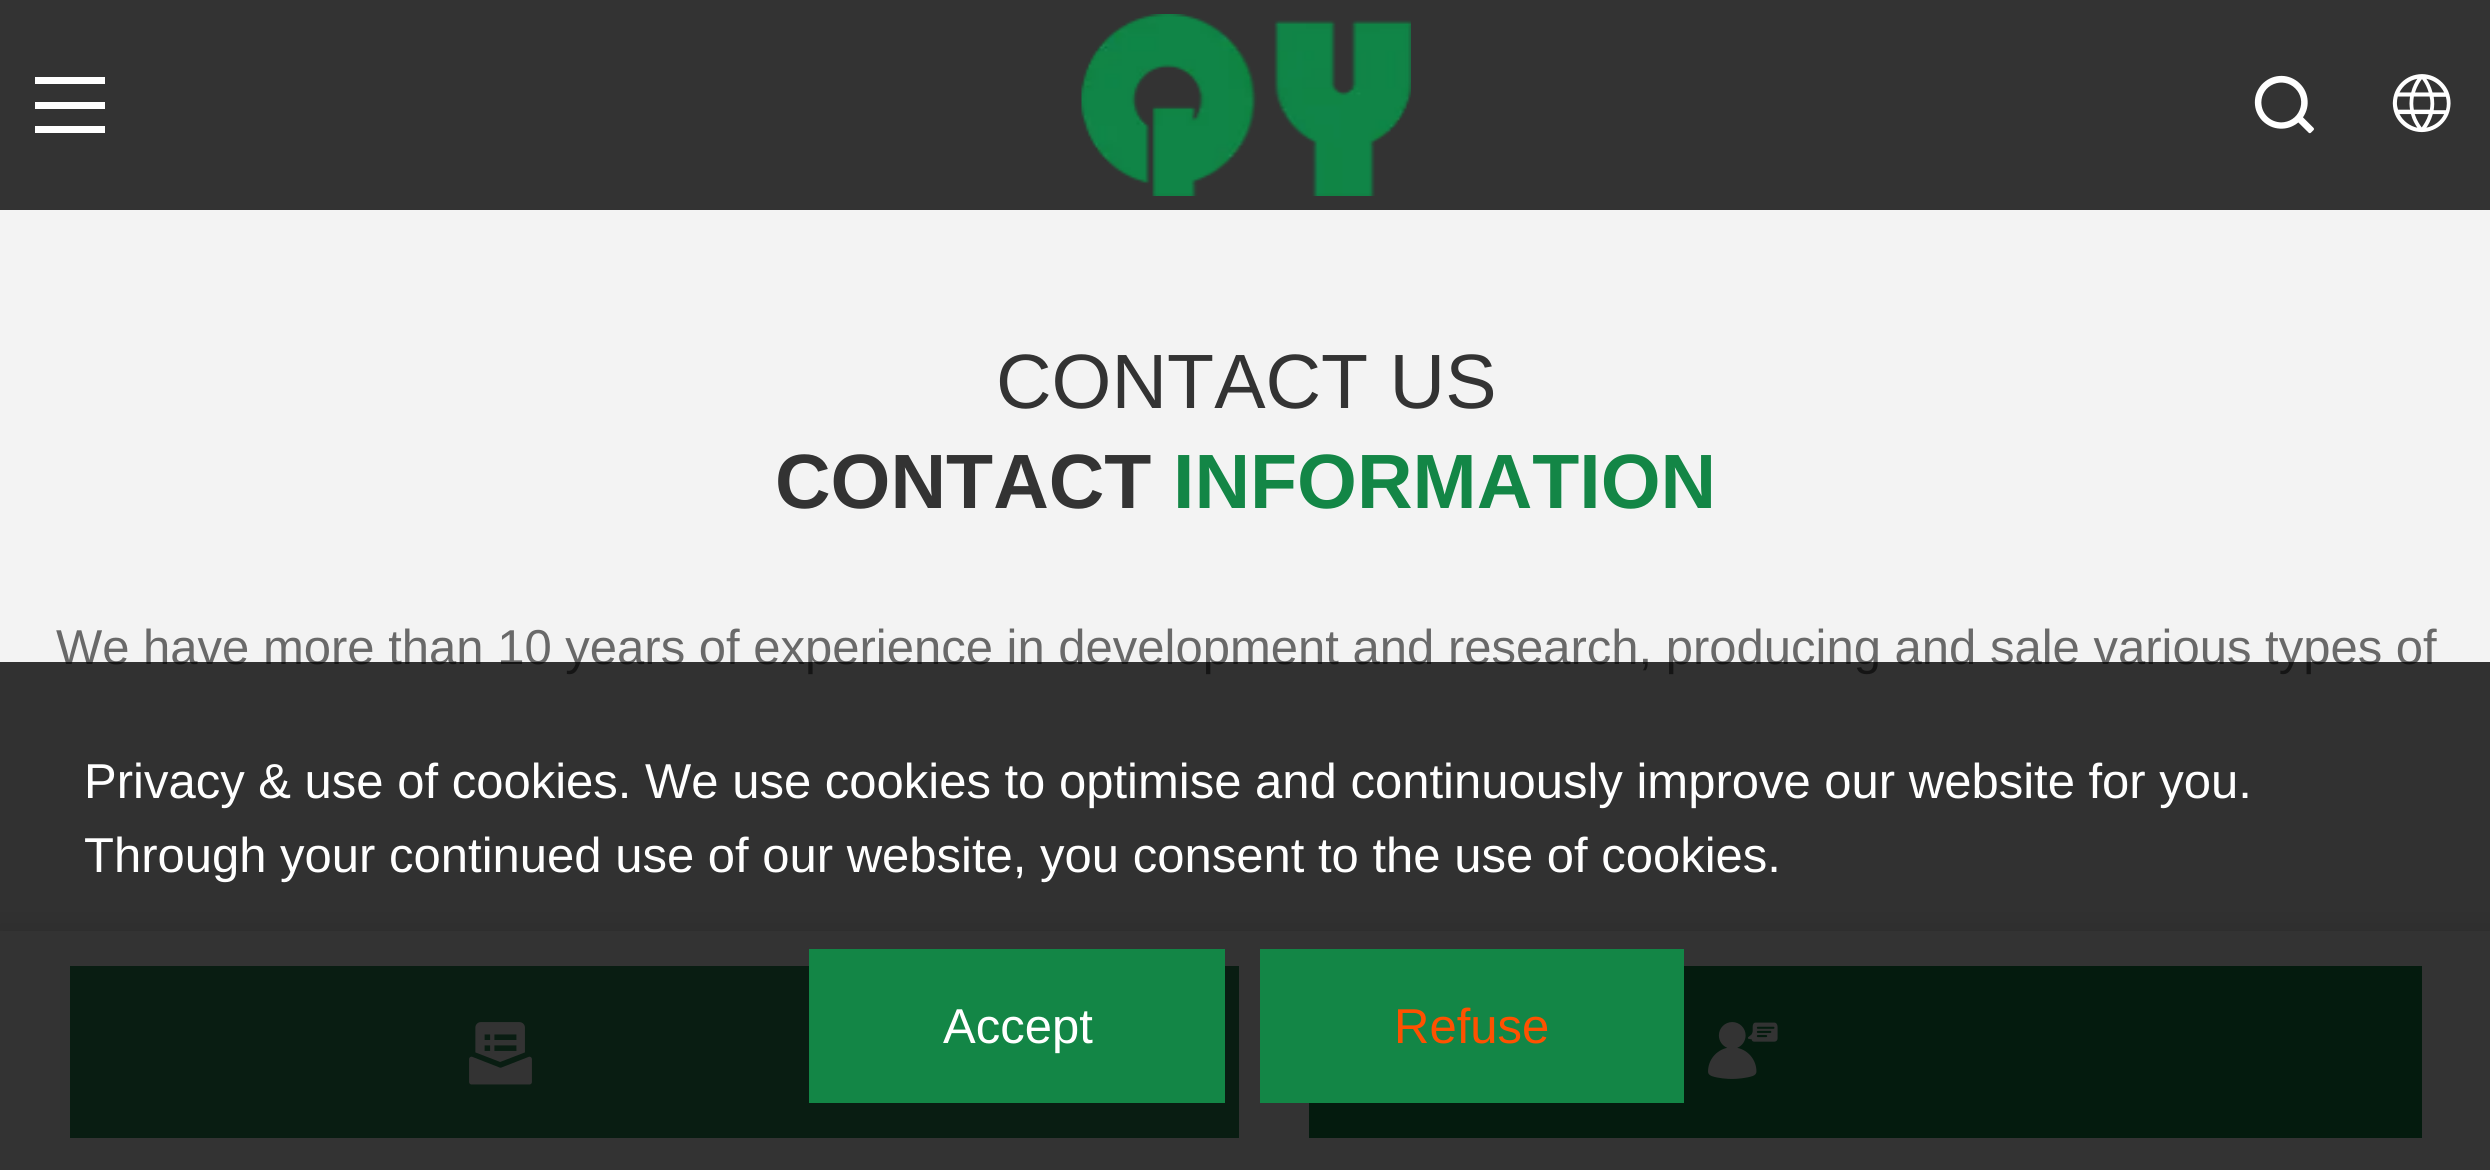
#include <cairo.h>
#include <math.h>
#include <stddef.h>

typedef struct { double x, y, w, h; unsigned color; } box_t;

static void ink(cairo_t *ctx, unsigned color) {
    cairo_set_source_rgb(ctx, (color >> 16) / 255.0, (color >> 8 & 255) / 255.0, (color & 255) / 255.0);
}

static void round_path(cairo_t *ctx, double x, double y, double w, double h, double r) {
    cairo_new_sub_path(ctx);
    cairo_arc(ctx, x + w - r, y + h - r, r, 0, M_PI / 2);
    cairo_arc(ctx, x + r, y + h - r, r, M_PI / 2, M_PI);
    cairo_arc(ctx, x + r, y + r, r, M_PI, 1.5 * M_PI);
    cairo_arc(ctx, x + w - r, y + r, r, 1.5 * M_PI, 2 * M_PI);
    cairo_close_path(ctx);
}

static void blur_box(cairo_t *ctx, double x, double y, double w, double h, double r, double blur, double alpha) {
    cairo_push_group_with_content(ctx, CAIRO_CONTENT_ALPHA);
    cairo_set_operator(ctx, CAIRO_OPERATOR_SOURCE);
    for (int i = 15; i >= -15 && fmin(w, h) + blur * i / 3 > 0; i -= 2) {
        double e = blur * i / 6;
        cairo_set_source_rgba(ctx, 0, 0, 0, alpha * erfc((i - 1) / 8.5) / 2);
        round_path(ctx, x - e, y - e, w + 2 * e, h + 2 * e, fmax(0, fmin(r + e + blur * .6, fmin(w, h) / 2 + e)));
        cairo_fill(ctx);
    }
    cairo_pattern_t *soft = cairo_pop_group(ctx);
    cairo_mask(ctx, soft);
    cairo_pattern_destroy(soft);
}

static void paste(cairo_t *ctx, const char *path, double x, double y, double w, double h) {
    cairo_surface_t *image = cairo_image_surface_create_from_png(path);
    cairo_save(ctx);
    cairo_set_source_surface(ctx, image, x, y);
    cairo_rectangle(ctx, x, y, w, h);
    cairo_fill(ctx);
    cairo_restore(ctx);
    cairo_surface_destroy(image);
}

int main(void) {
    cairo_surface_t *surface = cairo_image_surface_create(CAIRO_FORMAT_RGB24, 2490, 1170);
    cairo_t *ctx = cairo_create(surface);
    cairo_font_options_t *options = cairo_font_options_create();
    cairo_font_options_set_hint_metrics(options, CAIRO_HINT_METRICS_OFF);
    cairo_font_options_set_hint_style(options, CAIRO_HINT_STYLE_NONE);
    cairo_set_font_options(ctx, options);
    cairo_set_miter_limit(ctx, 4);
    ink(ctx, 0xF3F3F3);
    cairo_paint(ctx);
    {
        static const box_t items[] = {
            {0, 0, 2490, 210, 0x333333},
            {35, 77, 70, 7, 0xFFFFFF},
            {35, 102, 70, 7, 0xFFFFFF},
            {35, 126, 70, 7, 0xFFFFFF},
        };
        for (size_t i = 0; i < sizeof items / sizeof *items; i++) {
            ink(ctx, items[i].color);
            cairo_rectangle(ctx, items[i].x, items[i].y, items[i].w, items[i].h);
            cairo_fill(ctx);
        }
    }
    paste(ctx, "media/1.png", 1081, 14, 330, 182);
    paste(ctx, "media/2.png", 2254, 75, 60, 59);
    paste(ctx, "media/3.png", 2392, 74, 59, 59);
    cairo_select_font_face(ctx, "Liberation Sans", CAIRO_FONT_SLANT_NORMAL, CAIRO_FONT_WEIGHT_NORMAL);
    cairo_set_font_size(ctx, 77);
    ink(ctx, 0x333333);
    cairo_move_to(ctx, 996, 408);
    cairo_show_text(ctx, "CONTACT US");
    cairo_select_font_face(ctx, "Liberation Sans", CAIRO_FONT_SLANT_NORMAL, CAIRO_FONT_WEIGHT_BOLD);
    cairo_move_to(ctx, 775, 508);
    cairo_show_text(ctx, "CONTACT");
    ink(ctx, 0x138646);
    cairo_move_to(ctx, 1173, 508);
    cairo_show_text(ctx, "INFORMATION");
    cairo_select_font_face(ctx, "Liberation Sans", CAIRO_FONT_SLANT_NORMAL, CAIRO_FONT_WEIGHT_NORMAL);
    cairo_set_font_size(ctx, 49);
    ink(ctx, 0x696969);
    cairo_move_to(ctx, 56, 664);
    cairo_show_text(ctx, "We have more than 10 years of experience in development and research, producing and sale various types of");
    ink(ctx, 0x000000);
    blur_box(ctx, 0, 931, 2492, 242, 0, 10.5, 0.1);
    ink(ctx, 0xFFFFFF);
    cairo_rectangle(ctx, 0, 931, 2490, 239);
    cairo_fill(ctx);
    ink(ctx, 0x2B9259);
    cairo_rectangle(ctx, 70, 966, 1169, 172);
    cairo_fill(ctx);
    paste(ctx, "media/4.png", 469, 1022, 63, 63);
    ink(ctx, 0x138646);
    cairo_rectangle(ctx, 1309, 966, 1113, 172);
    cairo_fill(ctx);
    paste(ctx, "media/5.png", 1708, 1022, 70, 57);
    cairo_set_source_rgba(ctx, 0, 0, 0, 0.8);
    cairo_rectangle(ctx, 0, 662, 2490, 508);
    cairo_fill(ctx);
    ink(ctx, 0xFFFFFF);
    cairo_move_to(ctx, 84, 798);
    cairo_show_text(ctx, "Privacy & use of cookies. We use cookies to optimise and continuously improve our website for you.");
    cairo_move_to(ctx, 84, 872);
    cairo_show_text(ctx, "Through your continued use of our website, you consent to the use of cookies.");
    ink(ctx, 0x138646);
    cairo_rectangle(ctx, 809, 949, 416, 154);
    cairo_fill(ctx);
    ink(ctx, 0xFFFFFF);
    cairo_move_to(ctx, 943, 1043);
    cairo_show_text(ctx, "Accept");
    ink(ctx, 0x138646);
    cairo_rectangle(ctx, 1260, 949, 424, 154);
    cairo_fill(ctx);
    ink(ctx, 0xFF5100);
    cairo_move_to(ctx, 1394, 1043);
    cairo_show_text(ctx, "Refuse");
    cairo_surface_write_to_png(surface, "image.png");
    cairo_font_options_destroy(options);
    cairo_destroy(ctx);
    cairo_surface_destroy(surface);
    return 0;
}
